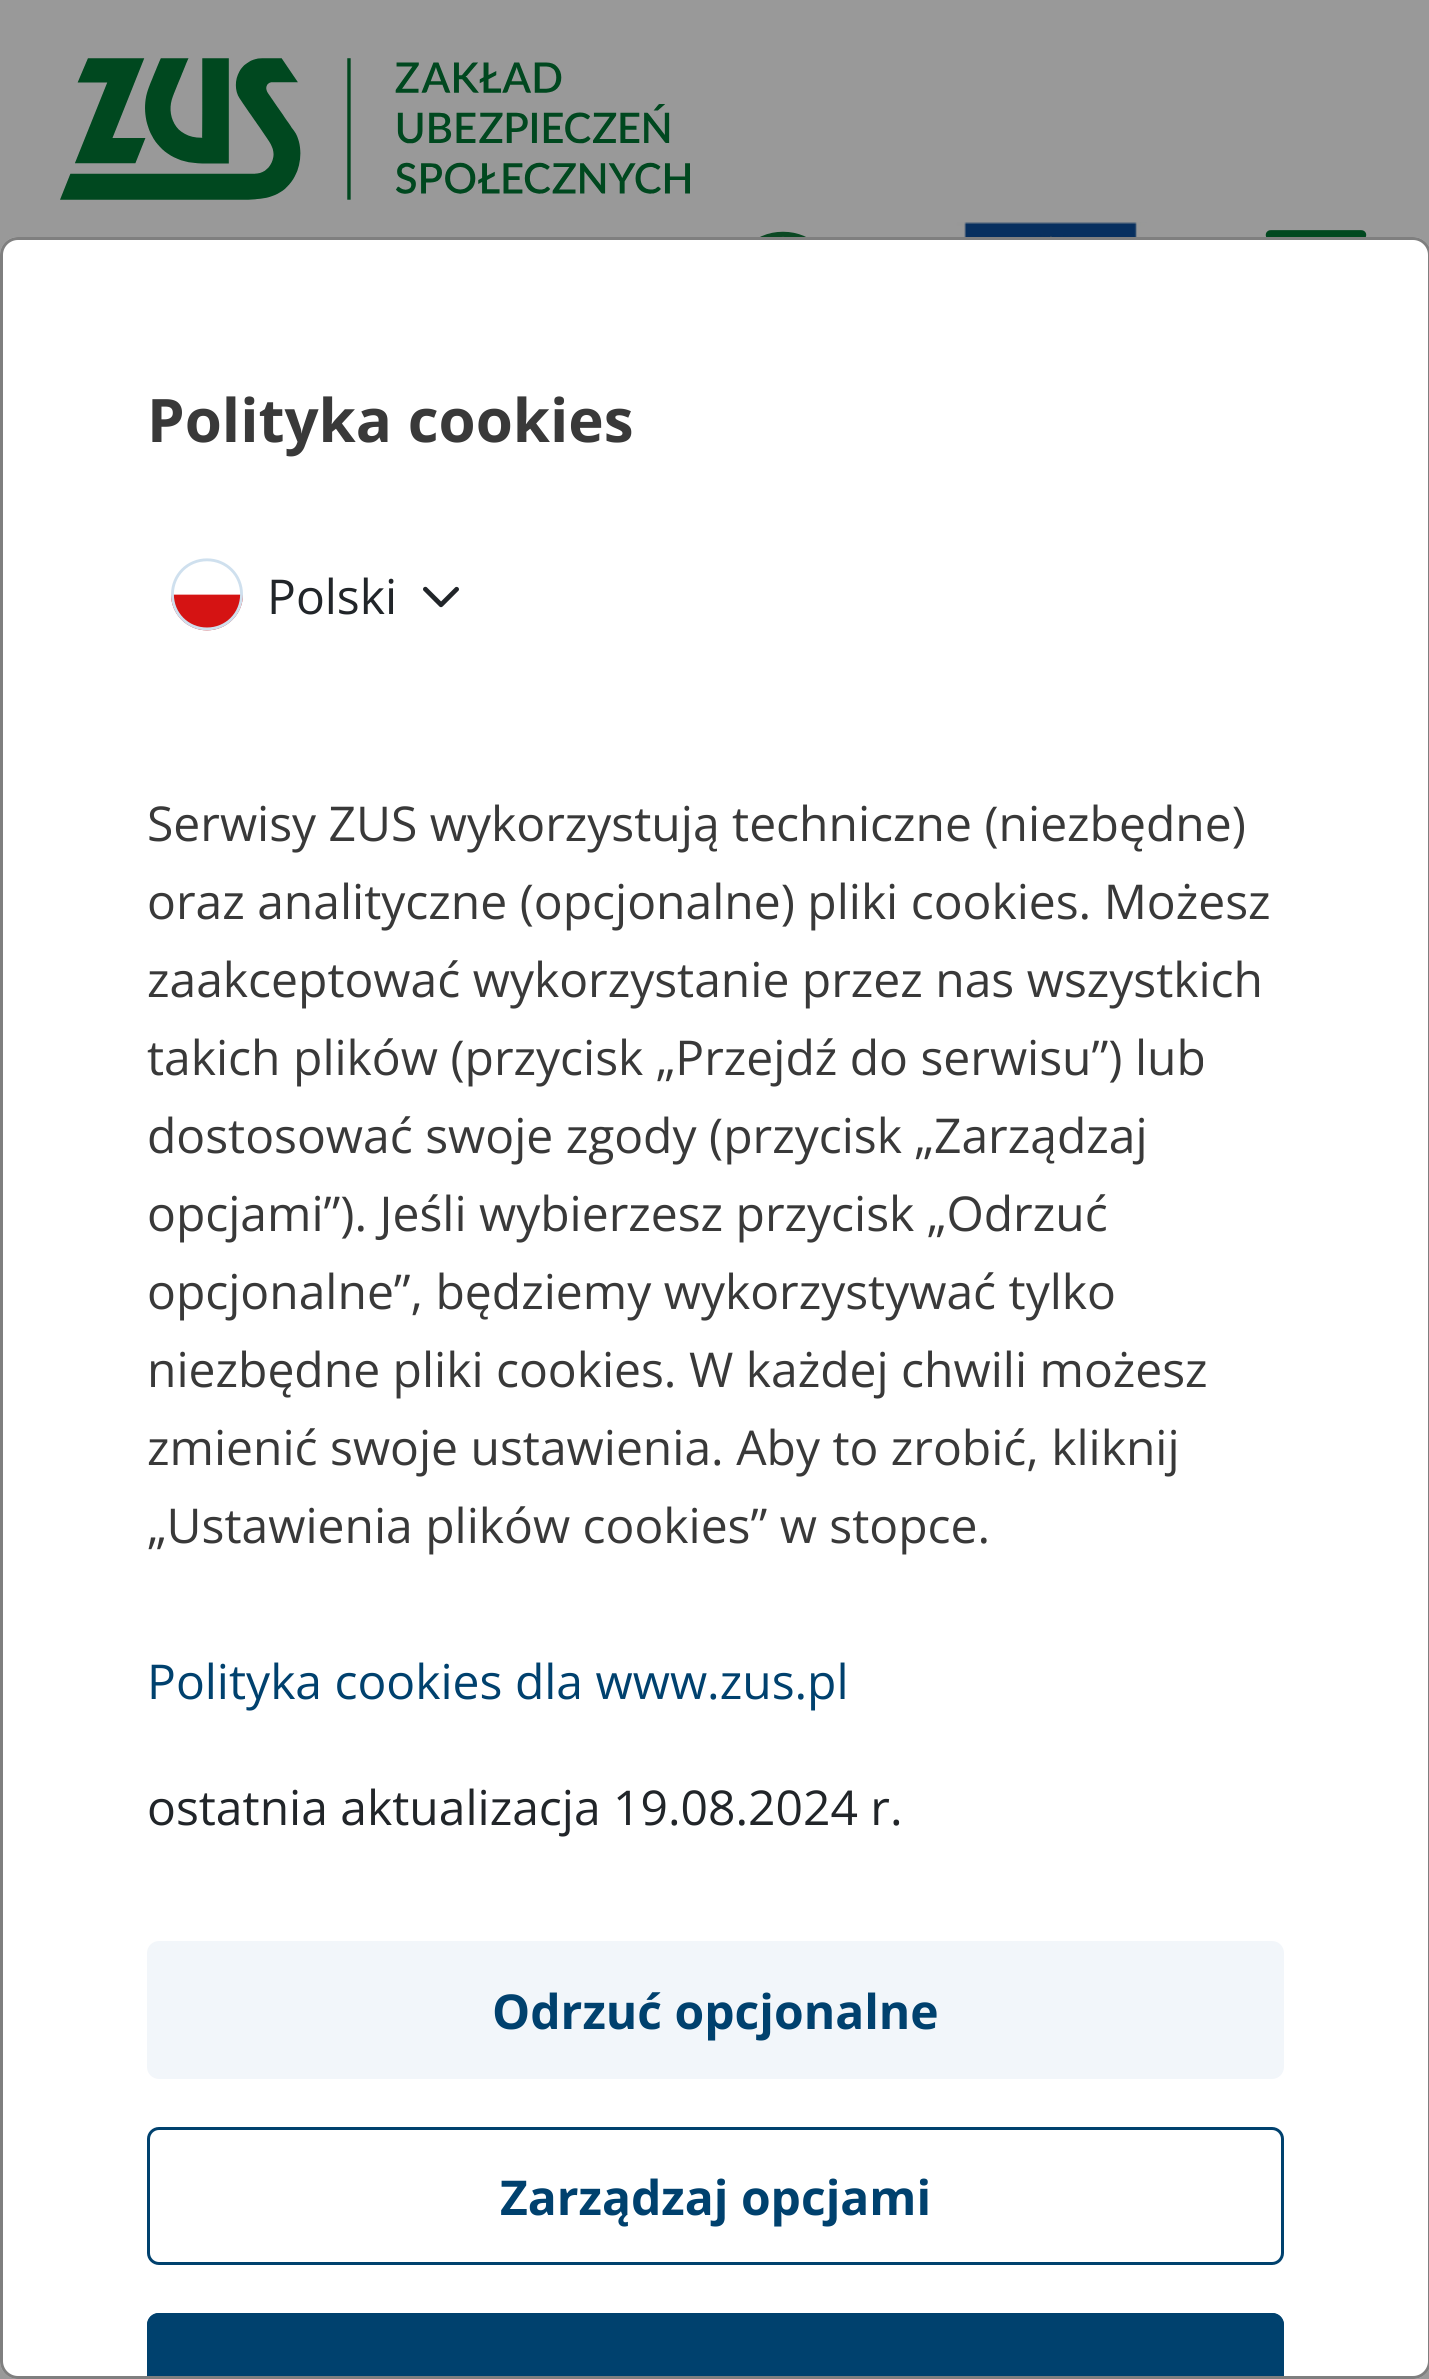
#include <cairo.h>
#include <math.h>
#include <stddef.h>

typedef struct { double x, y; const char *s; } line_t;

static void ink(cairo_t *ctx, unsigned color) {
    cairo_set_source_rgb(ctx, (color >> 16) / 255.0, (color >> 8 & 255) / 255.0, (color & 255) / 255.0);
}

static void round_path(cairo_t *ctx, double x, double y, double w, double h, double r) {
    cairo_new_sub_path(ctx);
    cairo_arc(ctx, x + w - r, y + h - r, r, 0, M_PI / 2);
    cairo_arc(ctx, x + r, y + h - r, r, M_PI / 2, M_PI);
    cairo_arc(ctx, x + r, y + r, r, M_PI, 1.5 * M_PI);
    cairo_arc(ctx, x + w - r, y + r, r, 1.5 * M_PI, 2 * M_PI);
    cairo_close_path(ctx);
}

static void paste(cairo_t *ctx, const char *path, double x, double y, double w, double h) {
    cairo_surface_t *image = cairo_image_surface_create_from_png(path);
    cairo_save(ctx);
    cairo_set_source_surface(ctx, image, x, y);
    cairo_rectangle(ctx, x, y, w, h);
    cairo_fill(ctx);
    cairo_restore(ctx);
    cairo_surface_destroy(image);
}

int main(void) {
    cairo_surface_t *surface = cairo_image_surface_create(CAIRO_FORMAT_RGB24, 1429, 2379);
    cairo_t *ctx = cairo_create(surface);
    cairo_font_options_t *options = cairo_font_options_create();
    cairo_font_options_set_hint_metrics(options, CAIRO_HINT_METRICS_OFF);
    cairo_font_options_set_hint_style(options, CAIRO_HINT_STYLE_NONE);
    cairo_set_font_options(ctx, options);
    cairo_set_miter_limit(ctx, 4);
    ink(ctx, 0x999999);
    cairo_paint(ctx);
    paste(ctx, "media/1.png", 60, 58, 630, 142);
    paste(ctx, "media/2.png", 760, 231, 46, 6);
    paste(ctx, "media/3.png", 902, 222, 297, 15);
    paste(ctx, "media/4.png", 1265, 230, 102, 7);
    ink(ctx, 0xFFFFFF);
    round_path(ctx, 0, 237, 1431, 2142, 18);
    cairo_fill(ctx);
    round_path(ctx, 1.5, 238.5, 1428, 2139, 16.5);
    cairo_set_source_rgba(ctx, 0, 0, 0, 0.5);
    cairo_set_line_width(ctx, 3);
    cairo_stroke(ctx);
    cairo_select_font_face(ctx, "Open Sans", CAIRO_FONT_SLANT_NORMAL, CAIRO_FONT_WEIGHT_BOLD);
    cairo_set_font_size(ctx, 60);
    ink(ctx, 0x393939);
    cairo_move_to(ctx, 147, 442);
    cairo_show_text(ctx, "Polityka cookies");
    paste(ctx, "media/5.png", 171, 558, 72, 73);
    cairo_select_font_face(ctx, "Open Sans", CAIRO_FONT_SLANT_NORMAL, CAIRO_FONT_WEIGHT_NORMAL);
    cairo_set_font_size(ctx, 48);
    ink(ctx, 0x212529);
    cairo_move_to(ctx, 267, 614);
    cairo_show_text(ctx, "Polski");
    paste(ctx, "media/6.png", 423, 586, 36, 22);
    ink(ctx, 0x393939);
    {
        static const line_t items[] = {
            {147, 841, "Serwisy ZUS wykorzystują techniczne (niezbędne)"},
            {147, 919, "oraz analityczne (opcjonalne) pliki cookies. Możesz"},
            {147, 997, "zaakceptować wykorzystanie przez nas wszystkich"},
            {147, 1075, "takich plików (przycisk „Przejdź do serwisu”) lub"},
            {147, 1153, "dostosować swoje zgody (przycisk „Zarządzaj"},
            {147, 1231, "opcjami”). Jeśli wybierzesz przycisk „Odrzuć"},
            {147, 1309, "opcjonalne”, będziemy wykorzystywać tylko"},
            {147, 1387, "niezbędne pliki cookies. W każdej chwili możesz"},
            {147, 1465, "zmienić swoje ustawienia. Aby to zrobić, kliknij"},
            {147, 1543, "„Ustawienia plików cookies” w stopce."},
        };
        for (size_t i = 0; i < sizeof items / sizeof *items; i++) {
            cairo_move_to(ctx, items[i].x, items[i].y);
            cairo_show_text(ctx, items[i].s);
        }
    }
    ink(ctx, 0x00416E);
    cairo_move_to(ctx, 147, 1699);
    cairo_show_text(ctx, "Polityka cookies dla www.zus.pl");
    ink(ctx, 0x212529);
    cairo_move_to(ctx, 147, 1825);
    cairo_show_text(ctx, "ostatnia aktualizacja 19.08.2024 r.");
    ink(ctx, 0xF2F6FA);
    round_path(ctx, 147, 1941, 1137, 138, 12);
    cairo_fill(ctx);
    cairo_select_font_face(ctx, "Open Sans", CAIRO_FONT_SLANT_NORMAL, CAIRO_FONT_WEIGHT_BOLD);
    ink(ctx, 0x00416E);
    cairo_move_to(ctx, 492, 2029);
    cairo_show_text(ctx, "Odrzuć opcjonalne");
    round_path(ctx, 148.5, 2128.5, 1134, 135, 10.5);
    cairo_stroke(ctx);
    cairo_move_to(ctx, 500, 2215);
    cairo_show_text(ctx, "Zarządzaj opcjami");
    cairo_new_path(ctx);
    cairo_move_to(ctx, 159, 2313);
    cairo_line_to(ctx, 1272, 2313);
    cairo_curve_to(ctx, 1278.5, 2313, 1284, 2318.5, 1284, 2325);
    cairo_line_to(ctx, 1284, 2376);
    cairo_line_to(ctx, 147, 2376);
    cairo_line_to(ctx, 147, 2325);
    cairo_curve_to(ctx, 147, 2318.5, 152.5, 2313, 159, 2313);
    cairo_close_path(ctx);
    cairo_fill(ctx);
    cairo_new_path(ctx);
    cairo_move_to(ctx, 159, 2313);
    cairo_curve_to(ctx, 152, 2313, 147, 2318, 147, 2325);
    cairo_line_to(ctx, 147, 2376);
    cairo_line_to(ctx, 150, 2376);
    cairo_line_to(ctx, 150, 2325);
    cairo_curve_to(ctx, 150, 2320, 154, 2316, 159, 2316);
    cairo_line_to(ctx, 1272, 2316);
    cairo_curve_to(ctx, 1277, 2316, 1281, 2320, 1281, 2325);
    cairo_line_to(ctx, 1281, 2376);
    cairo_line_to(ctx, 1284, 2376);
    cairo_line_to(ctx, 1284, 2325);
    cairo_curve_to(ctx, 1284, 2318, 1279, 2313, 1272, 2313);
    cairo_close_path(ctx);
    cairo_fill(ctx);
    cairo_surface_write_to_png(surface, "image.png");
    cairo_font_options_destroy(options);
    cairo_destroy(ctx);
    cairo_surface_destroy(surface);
    return 0;
}
